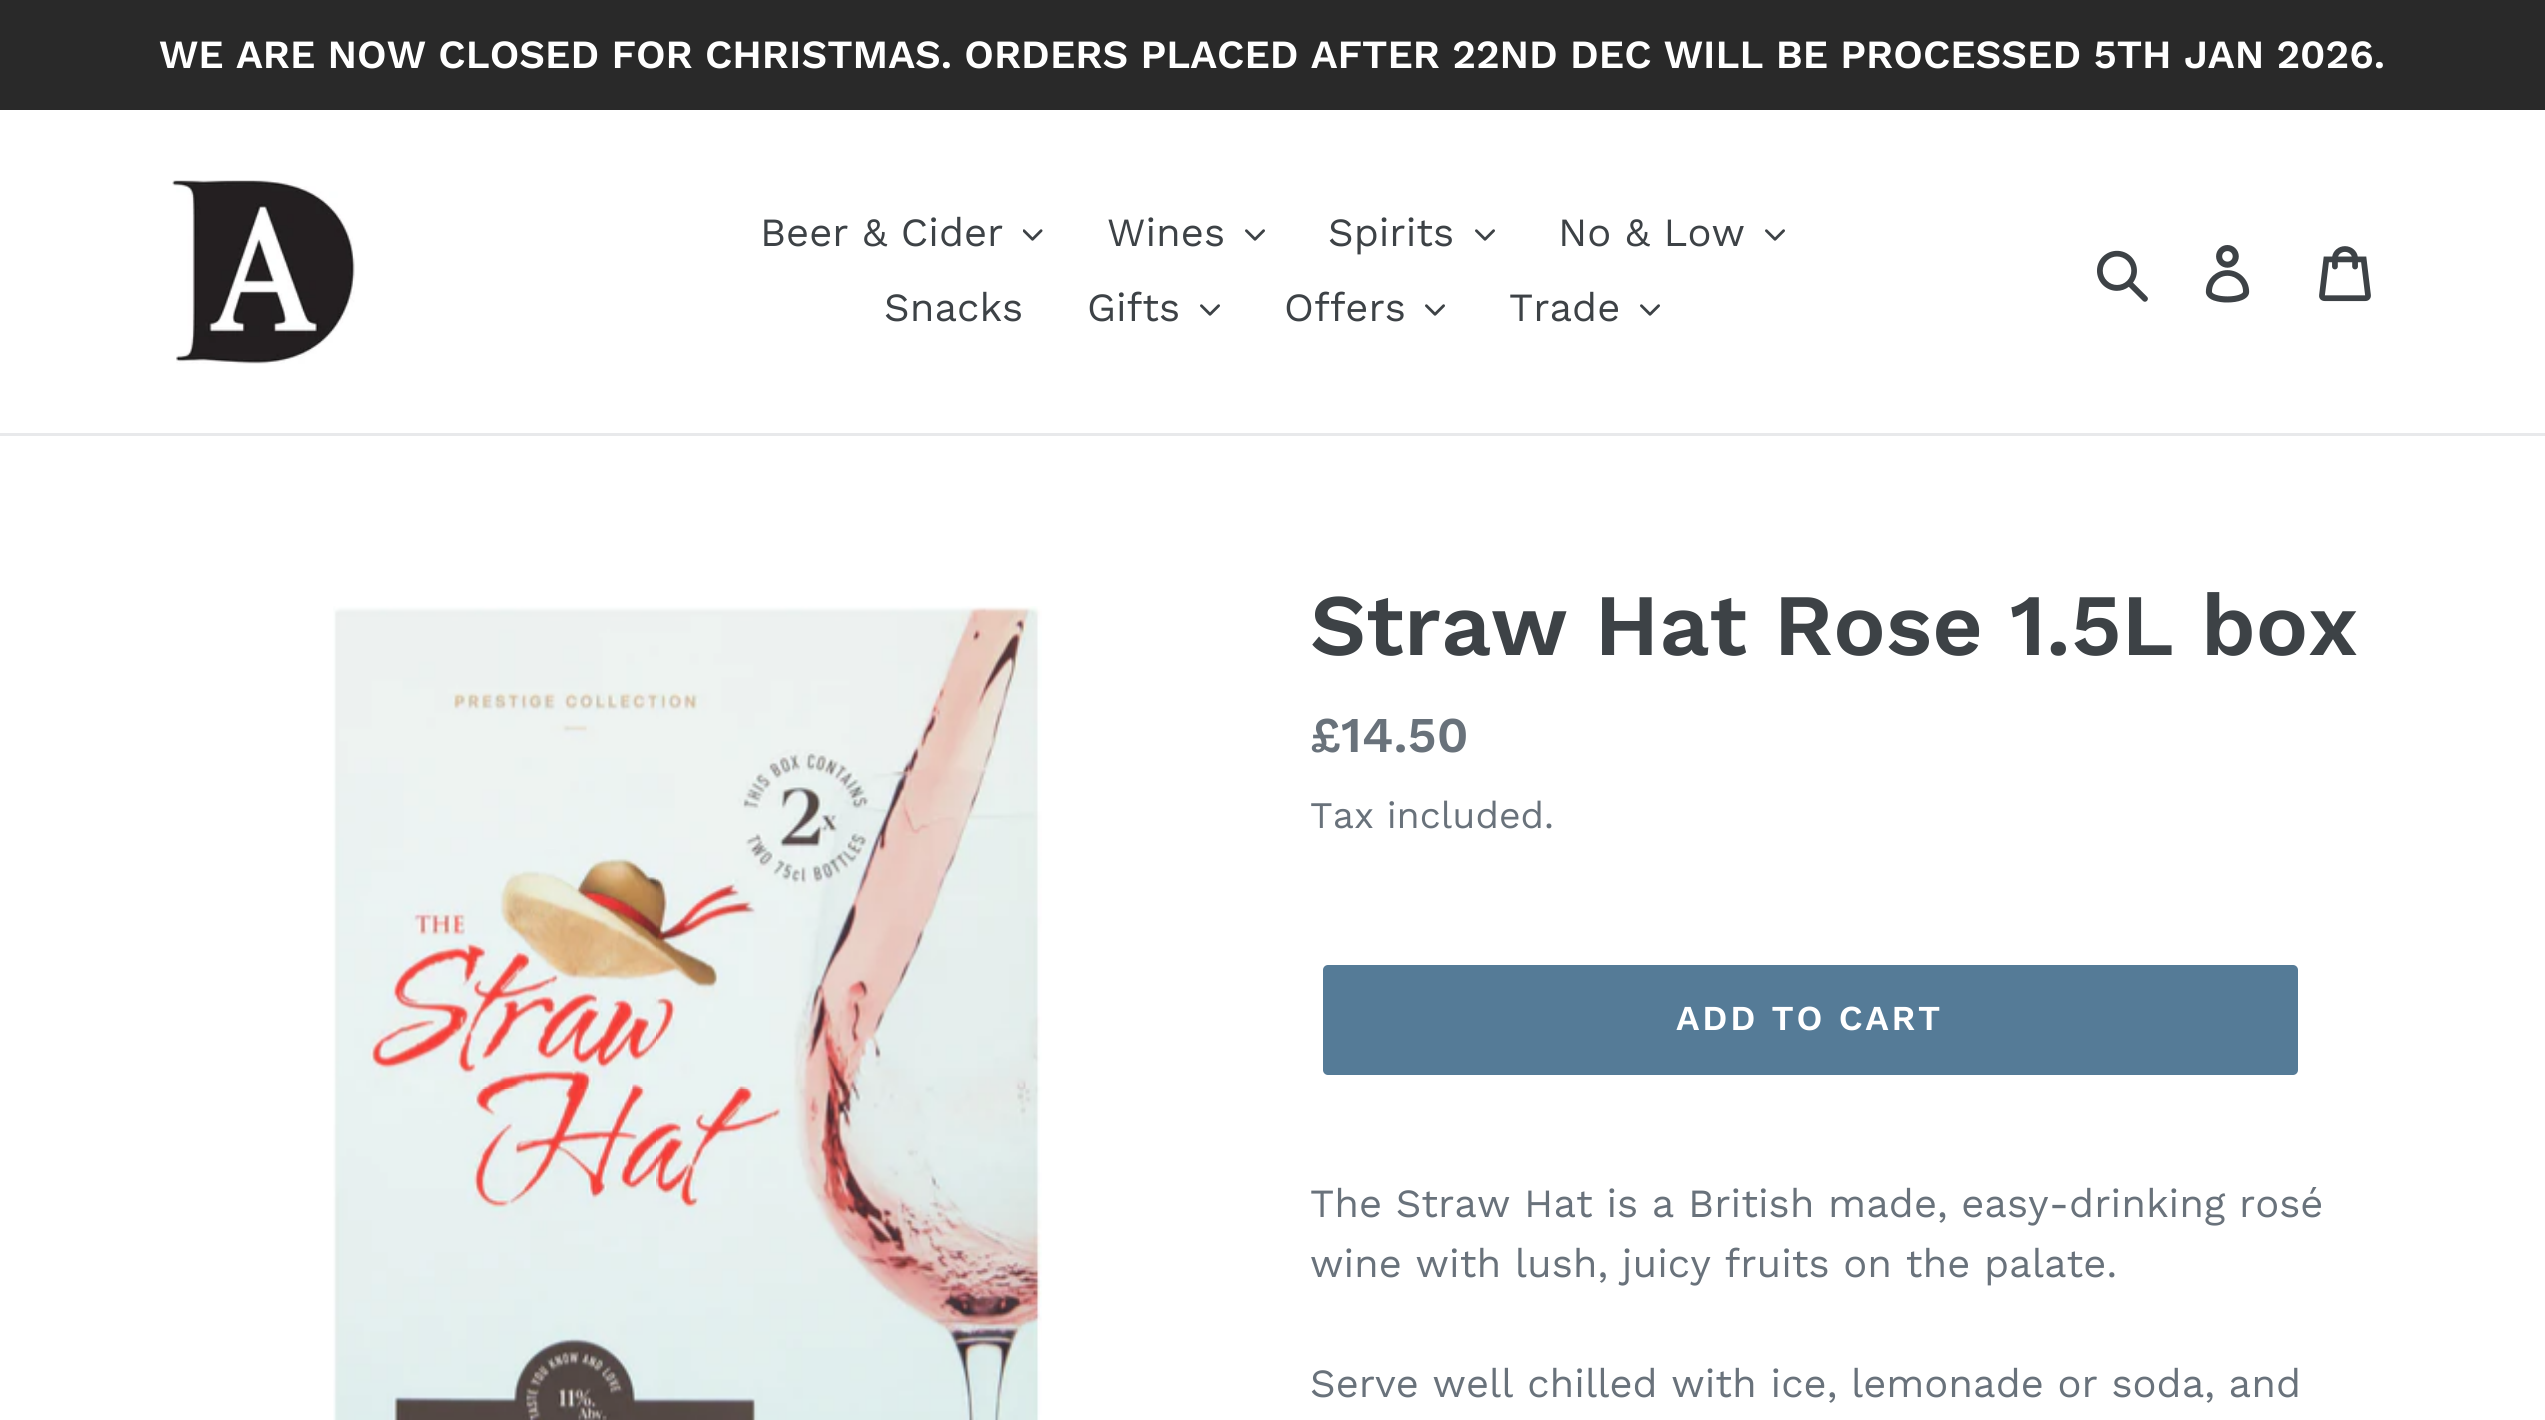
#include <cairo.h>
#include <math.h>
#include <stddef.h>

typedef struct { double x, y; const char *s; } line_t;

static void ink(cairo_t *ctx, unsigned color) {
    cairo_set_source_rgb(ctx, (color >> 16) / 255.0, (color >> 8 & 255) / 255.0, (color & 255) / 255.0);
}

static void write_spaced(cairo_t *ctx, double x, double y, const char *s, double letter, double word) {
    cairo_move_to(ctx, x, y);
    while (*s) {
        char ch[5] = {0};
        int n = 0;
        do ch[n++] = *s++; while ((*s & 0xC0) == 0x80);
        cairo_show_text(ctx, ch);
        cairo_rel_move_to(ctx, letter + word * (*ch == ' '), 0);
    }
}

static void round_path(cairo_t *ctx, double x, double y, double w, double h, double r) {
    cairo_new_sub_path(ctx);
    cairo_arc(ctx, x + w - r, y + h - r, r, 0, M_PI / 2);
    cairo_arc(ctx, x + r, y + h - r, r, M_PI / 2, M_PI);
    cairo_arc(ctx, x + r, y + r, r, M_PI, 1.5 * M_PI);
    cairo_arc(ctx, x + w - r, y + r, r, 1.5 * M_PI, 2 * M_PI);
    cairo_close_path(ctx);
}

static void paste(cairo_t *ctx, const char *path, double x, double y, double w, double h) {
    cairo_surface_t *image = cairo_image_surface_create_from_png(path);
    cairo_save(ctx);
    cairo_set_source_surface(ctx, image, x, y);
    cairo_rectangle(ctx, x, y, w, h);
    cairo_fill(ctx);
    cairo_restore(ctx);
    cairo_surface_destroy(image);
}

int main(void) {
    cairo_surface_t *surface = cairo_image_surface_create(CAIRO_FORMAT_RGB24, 2545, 1420);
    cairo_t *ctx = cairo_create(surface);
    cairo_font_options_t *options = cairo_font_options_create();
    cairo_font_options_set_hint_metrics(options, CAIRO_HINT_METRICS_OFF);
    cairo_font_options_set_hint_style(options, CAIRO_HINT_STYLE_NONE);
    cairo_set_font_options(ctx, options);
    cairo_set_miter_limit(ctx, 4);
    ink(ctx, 0xFFFFFF);
    cairo_paint(ctx);
    ink(ctx, 0x292929);
    cairo_rectangle(ctx, 0, 0, 2545, 110);
    cairo_fill(ctx);
    cairo_select_font_face(ctx, "Work Sans SemiBold", CAIRO_FONT_SLANT_NORMAL, CAIRO_FONT_WEIGHT_NORMAL);
    cairo_set_font_size(ctx, 40);
    ink(ctx, 0xFFFFFF);
    cairo_move_to(ctx, 159, 68);
    cairo_show_text(ctx, "WE ARE NOW CLOSED FOR CHRISTMAS. ORDERS PLACED AFTER 22ND DEC WILL BE PROCESSED 5TH JAN 2026.");
    ink(ctx, 0xE8E9EB);
    cairo_rectangle(ctx, 0, 433, 2545, 3);
    cairo_fill(ctx);
    paste(ctx, "media/1.png", 172, 180, 183, 184);
    cairo_select_font_face(ctx, "Work Sans", CAIRO_FONT_SLANT_NORMAL, CAIRO_FONT_WEIGHT_NORMAL);
    ink(ctx, 0x3D4246);
    cairo_move_to(ctx, 760, 246);
    cairo_show_text(ctx, "Beer & Cider");
    paste(ctx, "media/2.png", 1023, 229, 20, 12);
    cairo_move_to(ctx, 1107, 246);
    cairo_show_text(ctx, "Wines");
    paste(ctx, "media/3.png", 1245, 229, 20, 12);
    cairo_move_to(ctx, 1328, 246);
    cairo_show_text(ctx, "Spirits");
    paste(ctx, "media/3.png", 1475, 229, 20, 12);
    cairo_move_to(ctx, 1558, 246);
    cairo_show_text(ctx, "No & Low");
    paste(ctx, "media/3.png", 1765, 229, 20, 12);
    cairo_move_to(ctx, 884, 321);
    cairo_show_text(ctx, "Snacks");
    cairo_move_to(ctx, 1087, 321);
    cairo_show_text(ctx, "Gifts");
    paste(ctx, "media/3.png", 1200, 304, 20, 12);
    cairo_move_to(ctx, 1284, 321);
    cairo_show_text(ctx, "Offers");
    paste(ctx, "media/3.png", 1425, 304, 20, 12);
    cairo_move_to(ctx, 1509, 321);
    cairo_show_text(ctx, "Trade");
    paste(ctx, "media/3.png", 1640, 304, 20, 12);
    paste(ctx, "media/4.png", 2097, 250, 51, 52);
    paste(ctx, "media/5.png", 2205, 245, 45, 58);
    paste(ctx, "media/6.png", 2319, 246, 52, 56);
    paste(ctx, "media/7.png", 333, 606, 709, 814);
    cairo_select_font_face(ctx, "Work Sans SemiBold", CAIRO_FONT_SLANT_NORMAL, CAIRO_FONT_WEIGHT_NORMAL);
    cairo_set_font_size(ctx, 87.5);
    cairo_move_to(ctx, 1310, 655);
    cairo_show_text(ctx, "Straw Hat Rose 1.5L box");
    cairo_set_font_size(ctx, 50);
    ink(ctx, 0x69727B);
    cairo_move_to(ctx, 1310, 752);
    cairo_show_text(ctx, "£14.50");
    cairo_select_font_face(ctx, "Work Sans", CAIRO_FONT_SLANT_NORMAL, CAIRO_FONT_WEIGHT_NORMAL);
    cairo_set_font_size(ctx, 37.5);
    cairo_move_to(ctx, 1310, 828);
    cairo_show_text(ctx, "Tax included.");
    ink(ctx, 0x557B97);
    round_path(ctx, 1323, 965, 975, 110, 5);
    cairo_fill(ctx);
    cairo_select_font_face(ctx, "Work Sans SemiBold", CAIRO_FONT_SLANT_NORMAL, CAIRO_FONT_WEIGHT_NORMAL);
    cairo_set_font_size(ctx, 35);
    ink(ctx, 0xFFFFFF);
    write_spaced(ctx, 1676, 1030, "ADD TO CART", 2.75, 0);
    cairo_select_font_face(ctx, "Work Sans", CAIRO_FONT_SLANT_NORMAL, CAIRO_FONT_WEIGHT_NORMAL);
    cairo_set_font_size(ctx, 40);
    ink(ctx, 0x69727B);
    {
        static const line_t items[] = {
            {1310, 1217, "The Straw Hat is a British made, easy-drinking rosé"},
            {1310, 1277, "wine with lush, juicy fruits on the palate."},
            {1310, 1397, "Serve well chilled with ice, lemonade or soda, and"},
        };
        for (size_t i = 0; i < sizeof items / sizeof *items; i++) {
            cairo_move_to(ctx, items[i].x, items[i].y);
            cairo_show_text(ctx, items[i].s);
        }
    }
    cairo_surface_write_to_png(surface, "image.png");
    cairo_font_options_destroy(options);
    cairo_destroy(ctx);
    cairo_surface_destroy(surface);
    return 0;
}
